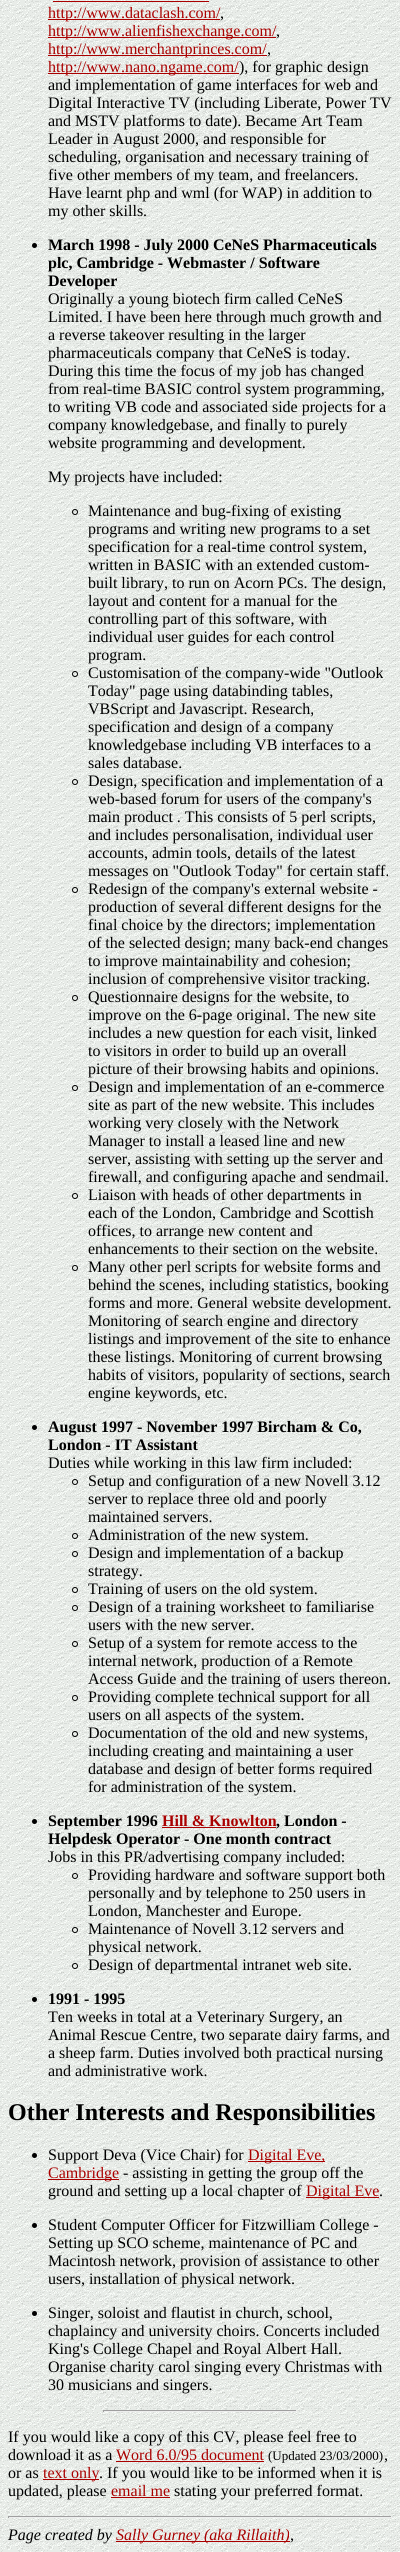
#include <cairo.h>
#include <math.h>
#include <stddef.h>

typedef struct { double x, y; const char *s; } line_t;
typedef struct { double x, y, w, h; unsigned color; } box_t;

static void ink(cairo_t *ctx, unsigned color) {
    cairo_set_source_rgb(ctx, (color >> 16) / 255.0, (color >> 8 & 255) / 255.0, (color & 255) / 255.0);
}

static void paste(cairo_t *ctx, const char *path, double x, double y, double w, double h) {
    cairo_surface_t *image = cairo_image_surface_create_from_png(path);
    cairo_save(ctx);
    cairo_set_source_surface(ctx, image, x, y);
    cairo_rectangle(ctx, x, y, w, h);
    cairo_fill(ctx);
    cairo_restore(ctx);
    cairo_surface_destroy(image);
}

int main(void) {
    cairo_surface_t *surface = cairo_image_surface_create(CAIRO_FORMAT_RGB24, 400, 2552);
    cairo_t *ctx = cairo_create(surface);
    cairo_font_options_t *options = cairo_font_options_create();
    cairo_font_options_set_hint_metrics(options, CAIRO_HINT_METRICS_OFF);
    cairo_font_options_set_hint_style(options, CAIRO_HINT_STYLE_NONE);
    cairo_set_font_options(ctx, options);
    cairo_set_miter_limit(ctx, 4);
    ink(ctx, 0xFFFFFF);
    cairo_paint(ctx);
    paste(ctx, "media/1.png", 0, 0, 400, 2552);
    ink(ctx, 0xAA0000);
    cairo_rectangle(ctx, 53, 1, 156, 1);
    cairo_fill(ctx);
    cairo_rectangle(ctx, 48, 19, 172, 1);
    cairo_fill(ctx);
    cairo_select_font_face(ctx, "Liberation Serif", CAIRO_FONT_SLANT_NORMAL, CAIRO_FONT_WEIGHT_NORMAL);
    cairo_set_font_size(ctx, 16);
    cairo_move_to(ctx, 48, 18);
    cairo_show_text(ctx, "http://www.dataclash.com/");
    ink(ctx, 0x000000);
    cairo_move_to(ctx, 220, 18);
    cairo_show_text(ctx, ",");
    ink(ctx, 0xAA0000);
    cairo_rectangle(ctx, 48, 37, 228, 1);
    cairo_fill(ctx);
    cairo_move_to(ctx, 48, 36);
    cairo_show_text(ctx, "http://www.alienfishexchange.com/");
    ink(ctx, 0x000000);
    cairo_move_to(ctx, 276, 36);
    cairo_show_text(ctx, ",");
    ink(ctx, 0xAA0000);
    cairo_rectangle(ctx, 48, 55, 219, 1);
    cairo_fill(ctx);
    cairo_move_to(ctx, 48, 54);
    cairo_show_text(ctx, "http://www.merchantprinces.com/");
    ink(ctx, 0x000000);
    cairo_move_to(ctx, 267, 54);
    cairo_show_text(ctx, ",");
    ink(ctx, 0xAA0000);
    cairo_rectangle(ctx, 48, 73, 191, 1);
    cairo_fill(ctx);
    cairo_move_to(ctx, 48, 72);
    cairo_show_text(ctx, "http://www.nano.ngame.com/");
    ink(ctx, 0x000000);
    {
        static const line_t items[] = {
            {239, 72, "), for graphic design"},
            {48, 90, "and implementation of game interfaces for web and"},
            {48, 108, "Digital Interactive TV (including Liberate, Power TV"},
            {48, 126, "and MSTV platforms to date). Became Art Team"},
            {48, 144, "Leader in August 2000, and responsible for"},
            {48, 162, "scheduling, organisation and necessary training of"},
            {48, 180, "five other members of my team, and freelancers."},
            {48, 198, "Have learnt php and wml (for WAP) in addition to"},
            {48, 216, "my other skills."},
        };
        for (size_t i = 0; i < sizeof items / sizeof *items; i++) {
            cairo_move_to(ctx, items[i].x, items[i].y);
            cairo_show_text(ctx, items[i].s);
        }
    }
    cairo_new_path(ctx);
    cairo_arc(ctx, 34.5, 245.5, 2.5, 0, 2 * M_PI);
    cairo_fill(ctx);
    cairo_select_font_face(ctx, "Liberation Serif", CAIRO_FONT_SLANT_NORMAL, CAIRO_FONT_WEIGHT_BOLD);
    {
        static const line_t items[] = {
            {48, 250, "March 1998 - July 2000 CeNeS Pharmaceuticals"},
            {48, 268, "plc, Cambridge - Webmaster / Software"},
            {48, 286, "Developer"},
        };
        for (size_t i = 0; i < sizeof items / sizeof *items; i++) {
            cairo_move_to(ctx, items[i].x, items[i].y);
            cairo_show_text(ctx, items[i].s);
        }
    }
    cairo_select_font_face(ctx, "Liberation Serif", CAIRO_FONT_SLANT_NORMAL, CAIRO_FONT_WEIGHT_NORMAL);
    {
        static const line_t items[] = {
            {48, 304, "Originally a young biotech firm called CeNeS"},
            {48, 322, "Limited. I have been here through much growth and"},
            {48, 340, "a reverse takeover resulting in the larger"},
            {48, 358, "pharmaceuticals company that CeNeS is today."},
            {48, 376, "During this time the focus of my job has changed"},
            {48, 394, "from real-time BASIC control system programming,"},
            {48, 412, "to writing VB code and associated side projects for a"},
            {48, 430, "company knowledgebase, and finally to purely"},
            {48, 448, "website programming and development."},
            {48, 482, "My projects have included:"},
        };
        for (size_t i = 0; i < sizeof items / sizeof *items; i++) {
            cairo_move_to(ctx, items[i].x, items[i].y);
            cairo_show_text(ctx, items[i].s);
        }
    }
    cairo_new_path(ctx);
    cairo_arc(ctx, 75, 512, 2.5, 0, 2 * M_PI);
    cairo_set_line_width(ctx, 1);
    cairo_stroke(ctx);
    {
        static const line_t items[] = {
            {88, 516, "Maintenance and bug-fixing of existing"},
            {88, 534, "programs and writing new programs to a set"},
            {88, 552, "specification for a real-time control system,"},
            {88, 570, "written in BASIC with an extended custom-"},
            {88, 588, "built library, to run on Acorn PCs. The design,"},
            {88, 606, "layout and content for a manual for the"},
            {88, 624, "controlling part of this software, with"},
            {88, 642, "individual user guides for each control"},
            {88, 660, "program."},
        };
        for (size_t i = 0; i < sizeof items / sizeof *items; i++) {
            cairo_move_to(ctx, items[i].x, items[i].y);
            cairo_show_text(ctx, items[i].s);
        }
    }
    cairo_new_path(ctx);
    cairo_arc(ctx, 75, 674, 2.5, 0, 2 * M_PI);
    cairo_stroke(ctx);
    {
        static const line_t items[] = {
            {88, 678, "Customisation of the company-wide \"Outlook"},
            {88, 696, "Today\" page using databinding tables,"},
            {88, 714, "VBScript and Javascript. Research,"},
            {88, 732, "specification and design of a company"},
            {88, 750, "knowledgebase including VB interfaces to a"},
            {88, 768, "sales database."},
        };
        for (size_t i = 0; i < sizeof items / sizeof *items; i++) {
            cairo_move_to(ctx, items[i].x, items[i].y);
            cairo_show_text(ctx, items[i].s);
        }
    }
    cairo_new_path(ctx);
    cairo_arc(ctx, 75, 782, 2.5, 0, 2 * M_PI);
    cairo_stroke(ctx);
    {
        static const line_t items[] = {
            {88, 786, "Design, specification and implementation of a"},
            {88, 804, "web-based forum for users of the company's"},
            {88, 822, "main product . This consists of 5 perl scripts,"},
            {88, 840, "and includes personalisation, individual user"},
            {88, 858, "accounts, admin tools, details of the latest"},
            {88, 876, "messages on \"Outlook Today\" for certain staff."},
        };
        for (size_t i = 0; i < sizeof items / sizeof *items; i++) {
            cairo_move_to(ctx, items[i].x, items[i].y);
            cairo_show_text(ctx, items[i].s);
        }
    }
    cairo_new_path(ctx);
    cairo_arc(ctx, 75, 890, 2.5, 0, 2 * M_PI);
    cairo_stroke(ctx);
    {
        static const line_t items[] = {
            {88, 894, "Redesign of the company's external website -"},
            {88, 912, "production of several different designs for the"},
            {88, 930, "final choice by the directors; implementation"},
            {88, 948, "of the selected design; many back-end changes"},
            {88, 966, "to improve maintainability and cohesion;"},
            {88, 984, "inclusion of comprehensive visitor tracking."},
        };
        for (size_t i = 0; i < sizeof items / sizeof *items; i++) {
            cairo_move_to(ctx, items[i].x, items[i].y);
            cairo_show_text(ctx, items[i].s);
        }
    }
    cairo_new_path(ctx);
    cairo_arc(ctx, 75, 998, 2.5, 0, 2 * M_PI);
    cairo_stroke(ctx);
    {
        static const line_t items[] = {
            {88, 1002, "Questionnaire designs for the website, to"},
            {88, 1020, "improve on the 6-page original. The new site"},
            {88, 1038, "includes a new question for each visit, linked"},
            {88, 1056, "to visitors in order to build up an overall"},
            {88, 1074, "picture of their browsing habits and opinions."},
        };
        for (size_t i = 0; i < sizeof items / sizeof *items; i++) {
            cairo_move_to(ctx, items[i].x, items[i].y);
            cairo_show_text(ctx, items[i].s);
        }
    }
    cairo_new_path(ctx);
    cairo_arc(ctx, 75, 1088, 2.5, 0, 2 * M_PI);
    cairo_stroke(ctx);
    {
        static const line_t items[] = {
            {88, 1092, "Design and implementation of an e-commerce"},
            {88, 1110, "site as part of the new website. This includes"},
            {88, 1128, "working very closely with the Network"},
            {88, 1146, "Manager to install a leased line and new"},
            {88, 1164, "server, assisting with setting up the server and"},
            {88, 1182, "firewall, and configuring apache and sendmail."},
        };
        for (size_t i = 0; i < sizeof items / sizeof *items; i++) {
            cairo_move_to(ctx, items[i].x, items[i].y);
            cairo_show_text(ctx, items[i].s);
        }
    }
    cairo_new_path(ctx);
    cairo_arc(ctx, 75, 1196, 2.5, 0, 2 * M_PI);
    cairo_stroke(ctx);
    {
        static const line_t items[] = {
            {88, 1200, "Liaison with heads of other departments in"},
            {88, 1218, "each of the London, Cambridge and Scottish"},
            {88, 1236, "offices, to arrange new content and"},
            {88, 1254, "enhancements to their section on the website."},
        };
        for (size_t i = 0; i < sizeof items / sizeof *items; i++) {
            cairo_move_to(ctx, items[i].x, items[i].y);
            cairo_show_text(ctx, items[i].s);
        }
    }
    cairo_new_path(ctx);
    cairo_arc(ctx, 75, 1268, 2.5, 0, 2 * M_PI);
    cairo_stroke(ctx);
    {
        static const line_t items[] = {
            {88, 1272, "Many other perl scripts for website forms and"},
            {88, 1290, "behind the scenes, including statistics, booking"},
            {88, 1308, "forms and more. General website development."},
            {88, 1326, "Monitoring of search engine and directory"},
            {88, 1344, "listings and improvement of the site to enhance"},
            {88, 1362, "these listings. Monitoring of current browsing"},
            {88, 1380, "habits of visitors, popularity of sections, search"},
            {88, 1398, "engine keywords, etc."},
        };
        for (size_t i = 0; i < sizeof items / sizeof *items; i++) {
            cairo_move_to(ctx, items[i].x, items[i].y);
            cairo_show_text(ctx, items[i].s);
        }
    }
    cairo_new_path(ctx);
    cairo_arc(ctx, 34.5, 1427.5, 2.5, 0, 2 * M_PI);
    cairo_fill(ctx);
    cairo_select_font_face(ctx, "Liberation Serif", CAIRO_FONT_SLANT_NORMAL, CAIRO_FONT_WEIGHT_BOLD);
    cairo_move_to(ctx, 48, 1432);
    cairo_show_text(ctx, "August 1997 - November 1997 Bircham & Co,");
    cairo_move_to(ctx, 48, 1450);
    cairo_show_text(ctx, "London - IT Assistant");
    cairo_select_font_face(ctx, "Liberation Serif", CAIRO_FONT_SLANT_NORMAL, CAIRO_FONT_WEIGHT_NORMAL);
    cairo_move_to(ctx, 48, 1468);
    cairo_show_text(ctx, "Duties while working in this law firm included:");
    cairo_new_path(ctx);
    cairo_arc(ctx, 75, 1482, 2.5, 0, 2 * M_PI);
    cairo_stroke(ctx);
    {
        static const line_t items[] = {
            {88, 1486, "Setup and configuration of a new Novell 3.12"},
            {88, 1504, "server to replace three old and poorly"},
            {88, 1522, "maintained servers."},
        };
        for (size_t i = 0; i < sizeof items / sizeof *items; i++) {
            cairo_move_to(ctx, items[i].x, items[i].y);
            cairo_show_text(ctx, items[i].s);
        }
    }
    cairo_new_path(ctx);
    cairo_arc(ctx, 75, 1536, 2.5, 0, 2 * M_PI);
    cairo_stroke(ctx);
    cairo_move_to(ctx, 88, 1540);
    cairo_show_text(ctx, "Administration of the new system.");
    cairo_new_path(ctx);
    cairo_arc(ctx, 75, 1554, 2.5, 0, 2 * M_PI);
    cairo_stroke(ctx);
    cairo_move_to(ctx, 88, 1558);
    cairo_show_text(ctx, "Design and implementation of a backup");
    cairo_move_to(ctx, 88, 1576);
    cairo_show_text(ctx, "strategy.");
    cairo_new_path(ctx);
    cairo_arc(ctx, 75, 1590, 2.5, 0, 2 * M_PI);
    cairo_stroke(ctx);
    cairo_move_to(ctx, 88, 1594);
    cairo_show_text(ctx, "Training of users on the old system.");
    cairo_new_path(ctx);
    cairo_arc(ctx, 75, 1608, 2.5, 0, 2 * M_PI);
    cairo_stroke(ctx);
    cairo_move_to(ctx, 88, 1612);
    cairo_show_text(ctx, "Design of a training worksheet to familiarise");
    cairo_move_to(ctx, 88, 1630);
    cairo_show_text(ctx, "users with the new server.");
    cairo_new_path(ctx);
    cairo_arc(ctx, 75, 1644, 2.5, 0, 2 * M_PI);
    cairo_stroke(ctx);
    {
        static const line_t items[] = {
            {88, 1648, "Setup of a system for remote access to the"},
            {88, 1666, "internal network, production of a Remote"},
            {88, 1684, "Access Guide and the training of users thereon."},
        };
        for (size_t i = 0; i < sizeof items / sizeof *items; i++) {
            cairo_move_to(ctx, items[i].x, items[i].y);
            cairo_show_text(ctx, items[i].s);
        }
    }
    cairo_new_path(ctx);
    cairo_arc(ctx, 75, 1698, 2.5, 0, 2 * M_PI);
    cairo_stroke(ctx);
    cairo_move_to(ctx, 88, 1702);
    cairo_show_text(ctx, "Providing complete technical support for all");
    cairo_move_to(ctx, 88, 1720);
    cairo_show_text(ctx, "users on all aspects of the system.");
    cairo_new_path(ctx);
    cairo_arc(ctx, 75, 1734, 2.5, 0, 2 * M_PI);
    cairo_stroke(ctx);
    {
        static const line_t items[] = {
            {88, 1738, "Documentation of the old and new systems,"},
            {88, 1756, "including creating and maintaining a user"},
            {88, 1774, "database and design of better forms required"},
            {88, 1792, "for administration of the system."},
        };
        for (size_t i = 0; i < sizeof items / sizeof *items; i++) {
            cairo_move_to(ctx, items[i].x, items[i].y);
            cairo_show_text(ctx, items[i].s);
        }
    }
    cairo_new_path(ctx);
    cairo_arc(ctx, 34.5, 1821.5, 2.5, 0, 2 * M_PI);
    cairo_fill(ctx);
    cairo_select_font_face(ctx, "Liberation Serif", CAIRO_FONT_SLANT_NORMAL, CAIRO_FONT_WEIGHT_BOLD);
    cairo_move_to(ctx, 48, 1826);
    cairo_show_text(ctx, "September 1996");
    ink(ctx, 0xAA0000);
    cairo_move_to(ctx, 162, 1826);
    cairo_show_text(ctx, "Hill & Knowlton");
    ink(ctx, 0x000000);
    cairo_move_to(ctx, 276, 1826);
    cairo_show_text(ctx, ", London -");
    ink(ctx, 0xAA0000);
    cairo_rectangle(ctx, 162, 1827, 114, 1);
    cairo_fill(ctx);
    ink(ctx, 0x000000);
    cairo_move_to(ctx, 48, 1844);
    cairo_show_text(ctx, "Helpdesk Operator - One month contract");
    cairo_select_font_face(ctx, "Liberation Serif", CAIRO_FONT_SLANT_NORMAL, CAIRO_FONT_WEIGHT_NORMAL);
    cairo_move_to(ctx, 48, 1862);
    cairo_show_text(ctx, "Jobs in this PR/advertising company included:");
    cairo_new_path(ctx);
    cairo_arc(ctx, 75, 1876, 2.5, 0, 2 * M_PI);
    cairo_stroke(ctx);
    {
        static const line_t items[] = {
            {88, 1880, "Providing hardware and software support both"},
            {88, 1898, "personally and by telephone to 250 users in"},
            {88, 1916, "London, Manchester and Europe."},
        };
        for (size_t i = 0; i < sizeof items / sizeof *items; i++) {
            cairo_move_to(ctx, items[i].x, items[i].y);
            cairo_show_text(ctx, items[i].s);
        }
    }
    cairo_new_path(ctx);
    cairo_arc(ctx, 75, 1930, 2.5, 0, 2 * M_PI);
    cairo_stroke(ctx);
    cairo_move_to(ctx, 88, 1934);
    cairo_show_text(ctx, "Maintenance of Novell 3.12 servers and");
    cairo_move_to(ctx, 88, 1952);
    cairo_show_text(ctx, "physical network.");
    cairo_new_path(ctx);
    cairo_arc(ctx, 75, 1966, 2.5, 0, 2 * M_PI);
    cairo_stroke(ctx);
    cairo_move_to(ctx, 88, 1970);
    cairo_show_text(ctx, "Design of departmental intranet web site.");
    cairo_new_path(ctx);
    cairo_arc(ctx, 34.5, 1999.5, 2.5, 0, 2 * M_PI);
    cairo_fill(ctx);
    cairo_select_font_face(ctx, "Liberation Serif", CAIRO_FONT_SLANT_NORMAL, CAIRO_FONT_WEIGHT_BOLD);
    cairo_move_to(ctx, 48, 2004);
    cairo_show_text(ctx, "1991 - 1995");
    cairo_select_font_face(ctx, "Liberation Serif", CAIRO_FONT_SLANT_NORMAL, CAIRO_FONT_WEIGHT_NORMAL);
    {
        static const line_t items[] = {
            {48, 2022, "Ten weeks in total at a Veterinary Surgery, an"},
            {48, 2040, "Animal Rescue Centre, two separate dairy farms, and"},
            {48, 2058, "a sheep farm. Duties involved both practical nursing"},
            {48, 2076, "and administrative work."},
        };
        for (size_t i = 0; i < sizeof items / sizeof *items; i++) {
            cairo_move_to(ctx, items[i].x, items[i].y);
            cairo_show_text(ctx, items[i].s);
        }
    }
    cairo_select_font_face(ctx, "Liberation Serif", CAIRO_FONT_SLANT_NORMAL, CAIRO_FONT_WEIGHT_BOLD);
    cairo_set_font_size(ctx, 24);
    cairo_move_to(ctx, 8, 2120);
    cairo_show_text(ctx, "Other Interests and Responsibilities");
    cairo_new_path(ctx);
    cairo_arc(ctx, 34.5, 2155.5, 2.5, 0, 2 * M_PI);
    cairo_fill(ctx);
    cairo_select_font_face(ctx, "Liberation Serif", CAIRO_FONT_SLANT_NORMAL, CAIRO_FONT_WEIGHT_NORMAL);
    cairo_set_font_size(ctx, 16);
    cairo_move_to(ctx, 48, 2160);
    cairo_show_text(ctx, "Support Deva (Vice Chair) for");
    ink(ctx, 0xAA0000);
    cairo_rectangle(ctx, 248, 2161, 77, 1);
    cairo_fill(ctx);
    cairo_move_to(ctx, 248, 2160);
    cairo_show_text(ctx, "Digital Eve,");
    cairo_rectangle(ctx, 48, 2179, 71, 1);
    cairo_fill(ctx);
    cairo_move_to(ctx, 48, 2178);
    cairo_show_text(ctx, "Cambridge");
    ink(ctx, 0x000000);
    cairo_move_to(ctx, 123, 2178);
    cairo_show_text(ctx, "- assisting in getting the group off the");
    cairo_move_to(ctx, 48, 2196);
    cairo_show_text(ctx, "ground and setting up a local chapter of");
    ink(ctx, 0xAA0000);
    cairo_rectangle(ctx, 306, 2197, 73, 1);
    cairo_fill(ctx);
    cairo_move_to(ctx, 306, 2196);
    cairo_show_text(ctx, "Digital Eve");
    ink(ctx, 0x000000);
    cairo_move_to(ctx, 379, 2196);
    cairo_show_text(ctx, ".");
    cairo_new_path(ctx);
    cairo_arc(ctx, 34.5, 2225.5, 2.5, 0, 2 * M_PI);
    cairo_fill(ctx);
    {
        static const line_t items[] = {
            {48, 2230, "Student Computer Officer for Fitzwilliam College -"},
            {48, 2248, "Setting up SCO scheme, maintenance of PC and"},
            {48, 2266, "Macintosh network, provision of assistance to other"},
            {48, 2284, "users, installation of physical network."},
        };
        for (size_t i = 0; i < sizeof items / sizeof *items; i++) {
            cairo_move_to(ctx, items[i].x, items[i].y);
            cairo_show_text(ctx, items[i].s);
        }
    }
    cairo_new_path(ctx);
    cairo_arc(ctx, 34.5, 2313.5, 2.5, 0, 2 * M_PI);
    cairo_fill(ctx);
    {
        static const line_t items[] = {
            {48, 2318, "Singer, soloist and flautist in church, school,"},
            {48, 2336, "chaplaincy and university choirs. Concerts included"},
            {48, 2354, "King's College Chapel and Royal Albert Hall."},
            {48, 2372, "Organise charity carol singing every Christmas with"},
            {48, 2390, "30 musicians and singers."},
        };
        for (size_t i = 0; i < sizeof items / sizeof *items; i++) {
            cairo_move_to(ctx, items[i].x, items[i].y);
            cairo_show_text(ctx, items[i].s);
        }
    }
    {
        static const box_t items[] = {
            {103, 2410, 194, 1, 0x9F9F9F},
            {296, 2410, 1, 2, 0xEEEEEE},
            {103, 2411, 194, 1, 0xEEEEEE},
            {103, 2410, 1, 2, 0x9F9F9F},
        };
        for (size_t i = 0; i < sizeof items / sizeof *items; i++) {
            ink(ctx, items[i].color);
            cairo_rectangle(ctx, items[i].x, items[i].y, items[i].w, items[i].h);
            cairo_fill(ctx);
        }
    }
    ink(ctx, 0x000000);
    cairo_move_to(ctx, 8, 2442);
    cairo_show_text(ctx, "If you would like a copy of this CV, please feel free to");
    cairo_move_to(ctx, 8, 2460);
    cairo_show_text(ctx, "download it as a");
    ink(ctx, 0xAA0000);
    cairo_move_to(ctx, 116, 2460);
    cairo_show_text(ctx, "Word 6.0/95 document");
    cairo_rectangle(ctx, 116, 2461, 148, 1);
    cairo_fill(ctx);
    cairo_set_font_size(ctx, 13);
    ink(ctx, 0x000000);
    cairo_move_to(ctx, 268, 2460);
    cairo_show_text(ctx, "(Updated 23/03/2000)");
    cairo_set_font_size(ctx, 16);
    cairo_move_to(ctx, 384, 2460);
    cairo_show_text(ctx, ",");
    cairo_move_to(ctx, 8, 2478);
    cairo_show_text(ctx, "or as");
    ink(ctx, 0xAA0000);
    cairo_rectangle(ctx, 43, 2479, 56, 1);
    cairo_fill(ctx);
    cairo_move_to(ctx, 43, 2478);
    cairo_show_text(ctx, "text only");
    ink(ctx, 0x000000);
    cairo_move_to(ctx, 99, 2478);
    cairo_show_text(ctx, ". If you would like to be informed when it is");
    cairo_move_to(ctx, 8, 2496);
    cairo_show_text(ctx, "updated, please");
    ink(ctx, 0xAA0000);
    cairo_move_to(ctx, 111, 2496);
    cairo_show_text(ctx, "email me");
    cairo_rectangle(ctx, 111, 2497, 59, 1);
    cairo_fill(ctx);
    ink(ctx, 0x000000);
    cairo_move_to(ctx, 174, 2496);
    cairo_show_text(ctx, "stating your preferred format.");
    {
        static const box_t items[] = {
            {8, 2516, 384, 1, 0x9F9F9F},
            {391, 2516, 1, 2, 0xEEEEEE},
            {8, 2517, 384, 1, 0xEEEEEE},
            {8, 2516, 1, 2, 0x9F9F9F},
        };
        for (size_t i = 0; i < sizeof items / sizeof *items; i++) {
            ink(ctx, items[i].color);
            cairo_rectangle(ctx, items[i].x, items[i].y, items[i].w, items[i].h);
            cairo_fill(ctx);
        }
    }
    cairo_select_font_face(ctx, "Liberation Serif", CAIRO_FONT_SLANT_ITALIC, CAIRO_FONT_WEIGHT_NORMAL);
    ink(ctx, 0x000000);
    cairo_move_to(ctx, 8, 2540);
    cairo_show_text(ctx, "Page created by");
    ink(ctx, 0xAA0000);
    cairo_rectangle(ctx, 116, 2541, 174, 1);
    cairo_fill(ctx);
    cairo_move_to(ctx, 116, 2540);
    cairo_show_text(ctx, "Sally Gurney (aka Rillaith)");
    ink(ctx, 0x000000);
    cairo_move_to(ctx, 290, 2540);
    cairo_show_text(ctx, ",");
    cairo_surface_write_to_png(surface, "image.png");
    cairo_font_options_destroy(options);
    cairo_destroy(ctx);
    cairo_surface_destroy(surface);
    return 0;
}
